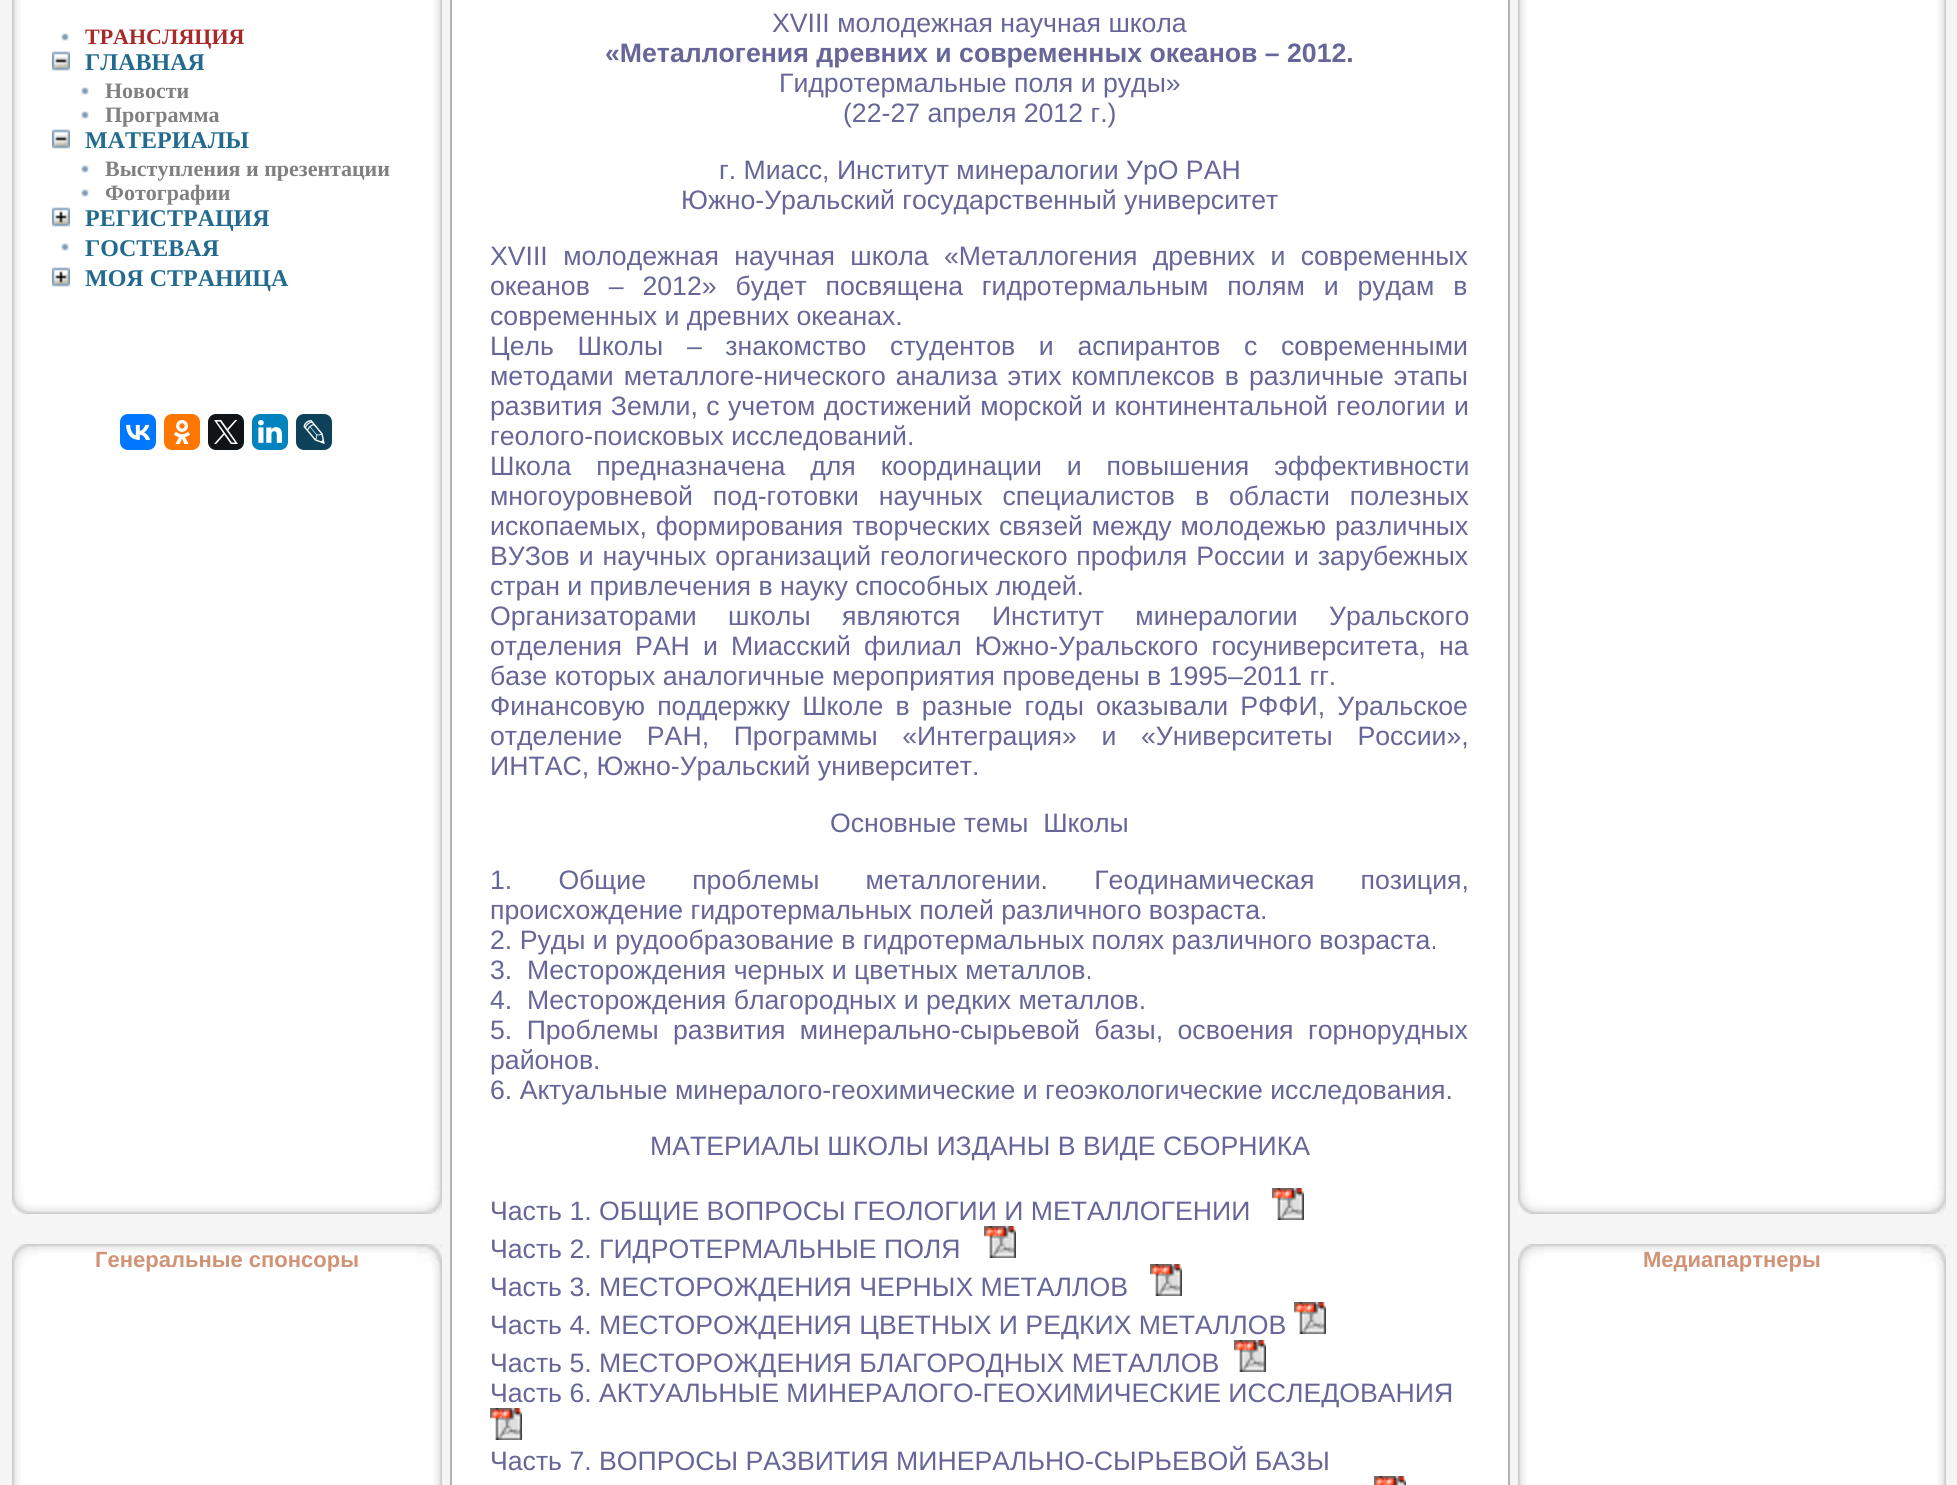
#include <cairo.h>
#include <math.h>
#include <stddef.h>

typedef struct { double x, y; const char *s; } line_t;
typedef struct { double x, y, w, h; unsigned color; } box_t;

static void ink(cairo_t *ctx, unsigned color) {
    cairo_set_source_rgb(ctx, (color >> 16) / 255.0, (color >> 8 & 255) / 255.0, (color & 255) / 255.0);
}

static void write_spaced(cairo_t *ctx, double x, double y, const char *s, double letter, double word) {
    cairo_move_to(ctx, x, y);
    while (*s) {
        char ch[5] = {0};
        int n = 0;
        do ch[n++] = *s++; while ((*s & 0xC0) == 0x80);
        cairo_show_text(ctx, ch);
        cairo_rel_move_to(ctx, letter + word * (*ch == ' '), 0);
    }
}

static void round_path(cairo_t *ctx, double x, double y, double w, double h, double r) {
    cairo_new_sub_path(ctx);
    cairo_arc(ctx, x + w - r, y + h - r, r, 0, M_PI / 2);
    cairo_arc(ctx, x + r, y + h - r, r, M_PI / 2, M_PI);
    cairo_arc(ctx, x + r, y + r, r, M_PI, 1.5 * M_PI);
    cairo_arc(ctx, x + w - r, y + r, r, 1.5 * M_PI, 2 * M_PI);
    cairo_close_path(ctx);
}

static void paste(cairo_t *ctx, const char *path, double x, double y, double w, double h) {
    cairo_surface_t *image = cairo_image_surface_create_from_png(path);
    cairo_save(ctx);
    cairo_set_source_surface(ctx, image, x, y);
    cairo_rectangle(ctx, x, y, w, h);
    cairo_fill(ctx);
    cairo_restore(ctx);
    cairo_surface_destroy(image);
}

int main(void) {
    cairo_surface_t *surface = cairo_image_surface_create(CAIRO_FORMAT_RGB24, 1957, 1485);
    cairo_t *ctx = cairo_create(surface);
    cairo_font_options_t *options = cairo_font_options_create();
    cairo_font_options_set_hint_metrics(options, CAIRO_HINT_METRICS_OFF);
    cairo_font_options_set_hint_style(options, CAIRO_HINT_STYLE_NONE);
    cairo_set_font_options(ctx, options);
    cairo_set_miter_limit(ctx, 4);
    ink(ctx, 0xF5F5F5);
    cairo_paint(ctx);
    {
        static const box_t items[] = {
            {452, 0, 1056, 1485, 0xFFFFFF},
            {1508, 0, 2, 1485, 0xAFAFC0},
            {450, 0, 2, 1485, 0xAFAFC0},
        };
        for (size_t i = 0; i < sizeof items / sizeof *items; i++) {
            ink(ctx, items[i].color);
            cairo_rectangle(ctx, items[i].x, items[i].y, items[i].w, items[i].h);
            cairo_fill(ctx);
        }
    }
    cairo_select_font_face(ctx, "Liberation Sans", CAIRO_FONT_SLANT_NORMAL, CAIRO_FONT_WEIGHT_NORMAL);
    cairo_set_font_size(ctx, 26.65);
    ink(ctx, 0x666699);
    cairo_move_to(ctx, 772, 32);
    cairo_show_text(ctx, "XVIII молодежная научная школа");
    cairo_select_font_face(ctx, "Liberation Sans", CAIRO_FONT_SLANT_NORMAL, CAIRO_FONT_WEIGHT_BOLD);
    cairo_move_to(ctx, 605, 62);
    cairo_show_text(ctx, "«Металлогения древних и современных океанов – 2012.");
    cairo_select_font_face(ctx, "Liberation Sans", CAIRO_FONT_SLANT_NORMAL, CAIRO_FONT_WEIGHT_NORMAL);
    {
        static const line_t items[] = {
            {779, 92, "Гидротермальные поля и руды»"},
            {843, 122, "(22-27 апреля 2012 г.)"},
            {719, 179, "г. Миасс, Институт минералогии УрО РАН"},
            {681, 209, "Южно-Уральский государственный университет"},
        };
        for (size_t i = 0; i < sizeof items / sizeof *items; i++) {
            cairo_move_to(ctx, items[i].x, items[i].y);
            cairo_show_text(ctx, items[i].s);
        }
    }
    write_spaced(ctx, 490, 265, "XVIII молодежная научная школа «Металлогения древних и современных", 0, 8);
    write_spaced(ctx, 490, 295, "океанов – 2012» будет посвящена гидротермальным полям и рудам в", 0, 11.5);
    cairo_move_to(ctx, 490, 325);
    cairo_show_text(ctx, "современных и древних океанах.");
    write_spaced(ctx, 490, 355, "Цель Школы – знакомство студентов и аспирантов с современными", 0, 16.25);
    write_spaced(ctx, 490, 385, "методами металлоге-нического анализа этих комплексов в различные этапы", 0, 2.5);
    write_spaced(ctx, 490, 415, "развития Земли, с учетом достижений морской и континентальной геологии и", 0, 1);
    cairo_move_to(ctx, 490, 445);
    cairo_show_text(ctx, "геолого-поисковых исследований.");
    write_spaced(ctx, 490, 475, "Школа предназначена для координации и повышения эффективности", 0, 17.5);
    write_spaced(ctx, 490, 505, "многоуровневой под-готовки научных специалистов в области полезных", 0, 12.5);
    write_spaced(ctx, 490, 535, "ископаемых, формирования творческих связей между молодежью различных", 0, 1.5);
    write_spaced(ctx, 490, 565, "ВУЗов и научных организаций геологического профиля России и зарубежных", 0, 1.5);
    cairo_move_to(ctx, 490, 595);
    cairo_show_text(ctx, "стран и привлечения в науку способных людей.");
    write_spaced(ctx, 490, 625, "Организаторами школы являются Институт минералогии Уральского", 0, 24);
    write_spaced(ctx, 490, 655, "отделения РАН и Миасский филиал Южно-Уральского госуниверситета, на", 0, 5.75);
    cairo_move_to(ctx, 490, 685);
    cairo_show_text(ctx, "базе которых аналогичные мероприятия проведены в 1995–2011 гг.");
    write_spaced(ctx, 490, 715, "Финансовую поддержку Школе в разные годы оказывали РФФИ, Уральское", 0, 4.75);
    write_spaced(ctx, 490, 745, "отделение РАН, Программы «Интеграция» и «Университеты России»,", 0, 17.25);
    cairo_move_to(ctx, 490, 775);
    cairo_show_text(ctx, "ИНТАС, Южно-Уральский университет.");
    cairo_move_to(ctx, 830, 832);
    cairo_show_text(ctx, "Основные темы  Школы");
    write_spaced(ctx, 490, 889, "1. Общие проблемы металлогении. Геодинамическая позиция,", 0, 38.75);
    {
        static const line_t items[] = {
            {490, 919, "происхождение гидротермальных полей различного возраста."},
            {490, 949, "2. Руды и рудообразование в гидротермальных полях различного возраста."},
            {490, 979, "3.  Месторождения черных и цветных металлов."},
            {490, 1009, "4.  Месторождения благородных и редких металлов."},
        };
        for (size_t i = 0; i < sizeof items / sizeof *items; i++) {
            cairo_move_to(ctx, items[i].x, items[i].y);
            cairo_show_text(ctx, items[i].s);
        }
    }
    write_spaced(ctx, 490, 1039, "5. Проблемы развития минерально-сырьевой базы, освоения горнорудных", 0, 7);
    {
        static const line_t items[] = {
            {490, 1069, "районов."},
            {490, 1099, "6. Актуальные минералого-геохимические и геоэкологические исследования."},
            {650, 1155, "МАТЕРИАЛЫ ШКОЛЫ ИЗДАНЫ В ВИДЕ СБОРНИКА"},
            {490, 1220, "Часть 1. ОБЩИЕ ВОПРОСЫ ГЕОЛОГИИ И МЕТАЛЛОГЕНИИ"},
        };
        for (size_t i = 0; i < sizeof items / sizeof *items; i++) {
            cairo_move_to(ctx, items[i].x, items[i].y);
            cairo_show_text(ctx, items[i].s);
        }
    }
    paste(ctx, "media/1.png", 1272, 1188, 32, 32);
    cairo_move_to(ctx, 490, 1258);
    cairo_show_text(ctx, "Часть 2. ГИДРОТЕРМАЛЬНЫЕ ПОЛЯ");
    paste(ctx, "media/1.png", 984, 1226, 32, 32);
    cairo_move_to(ctx, 490, 1296);
    cairo_show_text(ctx, "Часть 3. МЕСТОРОЖДЕНИЯ ЧЕРНЫХ МЕТАЛЛОВ");
    paste(ctx, "media/1.png", 1150, 1264, 32, 32);
    cairo_move_to(ctx, 490, 1334);
    cairo_show_text(ctx, "Часть 4. МЕСТОРОЖДЕНИЯ ЦВЕТНЫХ И РЕДКИХ МЕТАЛЛОВ");
    paste(ctx, "media/1.png", 1294, 1302, 32, 32);
    cairo_move_to(ctx, 490, 1372);
    cairo_show_text(ctx, "Часть 5. МЕСТОРОЖДЕНИЯ БЛАГОРОДНЫХ МЕТАЛЛОВ");
    paste(ctx, "media/1.png", 1234, 1340, 32, 32);
    cairo_move_to(ctx, 490, 1402);
    cairo_show_text(ctx, "Часть 6. АКТУАЛЬНЫЕ МИНЕРАЛОГО-ГЕОХИМИЧЕСКИЕ ИССЛЕДОВАНИЯ");
    paste(ctx, "media/1.png", 490, 1408, 32, 32);
    cairo_move_to(ctx, 490, 1470);
    cairo_show_text(ctx, "Часть 7. ВОПРОСЫ РАЗВИТИЯ МИНЕРАЛЬНО-СЫРЬЕВОЙ БАЗЫ");
    paste(ctx, "media/2.png", 1374, 1476, 32, 9);
    ink(ctx, 0xFFFFFF);
    cairo_rectangle(ctx, 21, 0, 412, 1205);
    cairo_fill(ctx);
    paste(ctx, "media/3.png", 12, 0, 9, 1186);
    paste(ctx, "media/4.png", 61, 33, 8, 8);
    cairo_select_font_face(ctx, "Liberation Serif", CAIRO_FONT_SLANT_NORMAL, CAIRO_FONT_WEIGHT_BOLD);
    cairo_set_font_size(ctx, 22);
    ink(ctx, 0xA62A2A);
    cairo_move_to(ctx, 85, 44);
    cairo_show_text(ctx, "ТРАНСЛЯЦИЯ");
    paste(ctx, "media/5.png", 52, 51, 18, 20);
    cairo_set_font_size(ctx, 24);
    ink(ctx, 0x236B8E);
    cairo_move_to(ctx, 85, 70);
    cairo_show_text(ctx, "ГЛАВНАЯ");
    paste(ctx, "media/4.png", 81, 87, 8, 8);
    cairo_set_font_size(ctx, 22);
    ink(ctx, 0x808080);
    cairo_move_to(ctx, 105, 98);
    cairo_show_text(ctx, "Новости");
    paste(ctx, "media/4.png", 81, 111, 8, 8);
    cairo_move_to(ctx, 105, 122);
    cairo_show_text(ctx, "Программа");
    paste(ctx, "media/5.png", 52, 129, 18, 20);
    cairo_set_font_size(ctx, 24);
    ink(ctx, 0x236B8E);
    cairo_move_to(ctx, 85, 148);
    cairo_show_text(ctx, "МАТЕРИАЛЫ");
    paste(ctx, "media/4.png", 81, 165, 8, 8);
    cairo_set_font_size(ctx, 22);
    ink(ctx, 0x808080);
    cairo_move_to(ctx, 105, 176);
    cairo_show_text(ctx, "Выступления и презентации");
    paste(ctx, "media/4.png", 81, 189, 8, 8);
    cairo_move_to(ctx, 105, 200);
    cairo_show_text(ctx, "Фотографии");
    paste(ctx, "media/6.png", 52, 207, 18, 20);
    cairo_set_font_size(ctx, 24);
    ink(ctx, 0x236B8E);
    cairo_move_to(ctx, 85, 226);
    cairo_show_text(ctx, "РЕГИСТРАЦИЯ");
    paste(ctx, "media/4.png", 61, 243, 8, 8);
    cairo_move_to(ctx, 85, 256);
    cairo_show_text(ctx, "ГОСТЕВАЯ");
    paste(ctx, "media/6.png", 52, 267, 18, 20);
    cairo_move_to(ctx, 85, 286);
    cairo_show_text(ctx, "МОЯ СТРАНИЦА");
    ink(ctx, 0x0077FF);
    round_path(ctx, 120, 414, 36, 36, 8);
    cairo_fill(ctx);
    paste(ctx, "media/7.png", 126, 424, 24, 16);
    ink(ctx, 0xFF7700);
    round_path(ctx, 164, 414, 36, 36, 8);
    cairo_fill(ctx);
    paste(ctx, "media/8.png", 174, 420, 17, 24);
    ink(ctx, 0x0F1419);
    round_path(ctx, 208, 414, 36, 36, 8);
    cairo_fill(ctx);
    paste(ctx, "media/9.png", 214, 420, 24, 24);
    ink(ctx, 0x0083BE);
    round_path(ctx, 252, 414, 36, 36, 8);
    cairo_fill(ctx);
    paste(ctx, "media/10.png", 258, 420, 24, 23);
    ink(ctx, 0x0D425A);
    round_path(ctx, 296, 414, 36, 36, 8);
    cairo_fill(ctx);
    paste(ctx, "media/11.png", 303, 420, 22, 24);
    paste(ctx, "media/12.png", 433, 0, 9, 1186);
    paste(ctx, "media/13.png", 12, 1186, 26, 28);
    paste(ctx, "media/14.png", 38, 1205, 378, 9);
    paste(ctx, "media/15.png", 416, 1186, 26, 28);
    ink(ctx, 0xFFFFFF);
    cairo_rectangle(ctx, 21, 1253, 412, 232);
    cairo_fill(ctx);
    paste(ctx, "media/16.png", 12, 1244, 26, 2);
    paste(ctx, "media/17.png", 12, 1246, 26, 26);
    paste(ctx, "media/18.png", 38, 1244, 378, 9);
    cairo_select_font_face(ctx, "Liberation Sans", CAIRO_FONT_SLANT_NORMAL, CAIRO_FONT_WEIGHT_BOLD);
    cairo_set_font_size(ctx, 22);
    ink(ctx, 0xD19275);
    cairo_move_to(ctx, 95, 1267);
    cairo_show_text(ctx, "Генеральные спонсоры");
    paste(ctx, "media/19.png", 416, 1244, 26, 24);
    paste(ctx, "media/20.png", 417, 1246, 25, 26);
    paste(ctx, "media/21.png", 12, 1272, 9, 213);
    paste(ctx, "media/22.png", 433, 1272, 9, 213);
    ink(ctx, 0xFFFFFF);
    cairo_rectangle(ctx, 1527, 0, 410, 1205);
    cairo_fill(ctx);
    paste(ctx, "media/3.png", 1518, 0, 9, 1186);
    paste(ctx, "media/12.png", 1937, 0, 9, 1186);
    paste(ctx, "media/13.png", 1518, 1186, 26, 28);
    paste(ctx, "media/23.png", 1544, 1205, 376, 9);
    paste(ctx, "media/15.png", 1920, 1186, 26, 28);
    cairo_rectangle(ctx, 1527, 1253, 410, 232);
    cairo_fill(ctx);
    paste(ctx, "media/16.png", 1518, 1244, 26, 2);
    paste(ctx, "media/17.png", 1518, 1246, 26, 26);
    paste(ctx, "media/24.png", 1544, 1244, 376, 9);
    ink(ctx, 0xD19275);
    cairo_move_to(ctx, 1643, 1267);
    cairo_show_text(ctx, "Медиапартнеры");
    paste(ctx, "media/19.png", 1920, 1244, 26, 24);
    paste(ctx, "media/20.png", 1921, 1246, 25, 26);
    paste(ctx, "media/21.png", 1518, 1272, 9, 213);
    paste(ctx, "media/22.png", 1937, 1272, 9, 213);
    cairo_surface_write_to_png(surface, "image.png");
    cairo_font_options_destroy(options);
    cairo_destroy(ctx);
    cairo_surface_destroy(surface);
    return 0;
}
